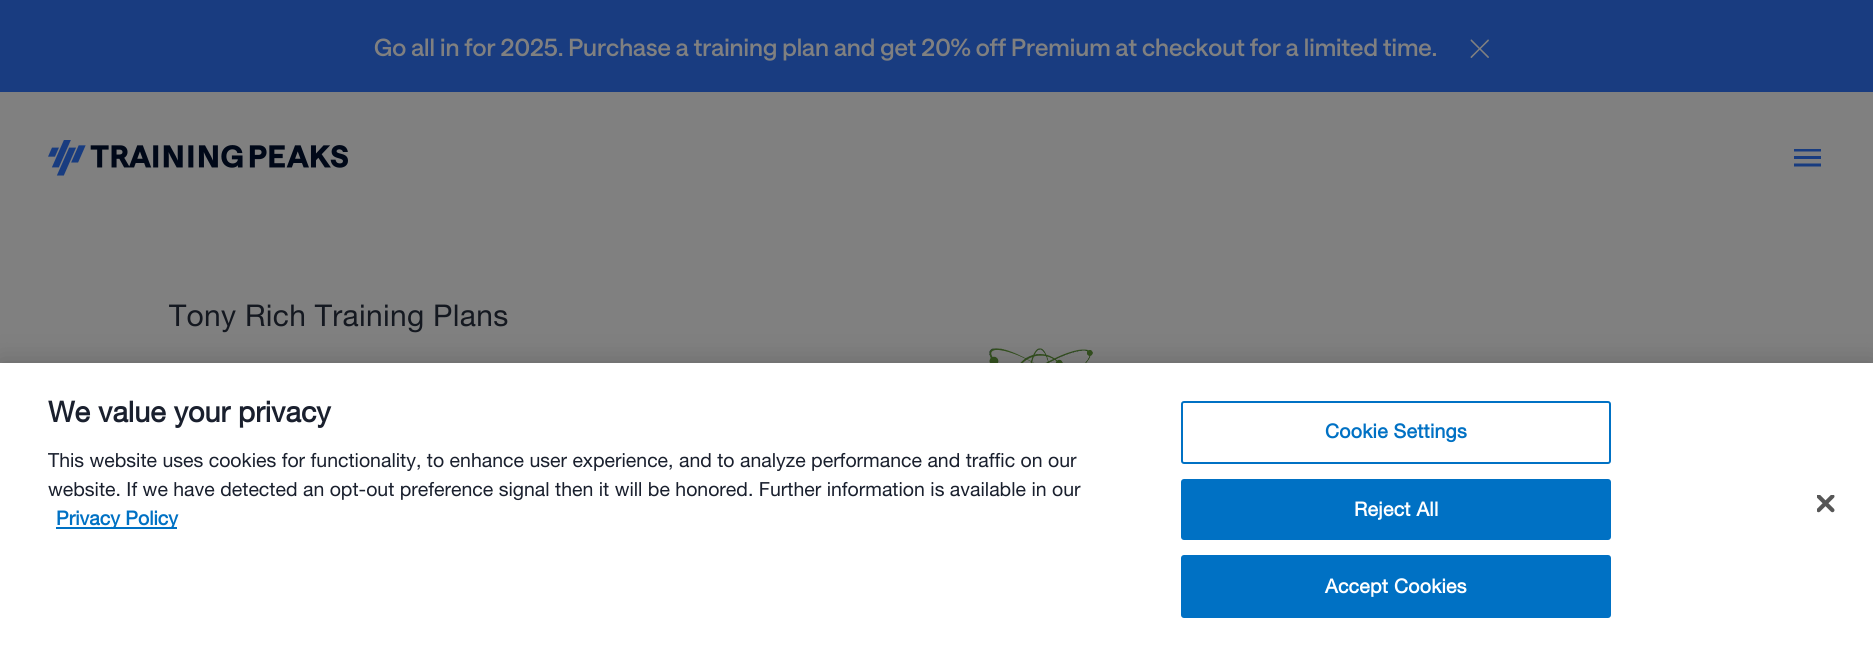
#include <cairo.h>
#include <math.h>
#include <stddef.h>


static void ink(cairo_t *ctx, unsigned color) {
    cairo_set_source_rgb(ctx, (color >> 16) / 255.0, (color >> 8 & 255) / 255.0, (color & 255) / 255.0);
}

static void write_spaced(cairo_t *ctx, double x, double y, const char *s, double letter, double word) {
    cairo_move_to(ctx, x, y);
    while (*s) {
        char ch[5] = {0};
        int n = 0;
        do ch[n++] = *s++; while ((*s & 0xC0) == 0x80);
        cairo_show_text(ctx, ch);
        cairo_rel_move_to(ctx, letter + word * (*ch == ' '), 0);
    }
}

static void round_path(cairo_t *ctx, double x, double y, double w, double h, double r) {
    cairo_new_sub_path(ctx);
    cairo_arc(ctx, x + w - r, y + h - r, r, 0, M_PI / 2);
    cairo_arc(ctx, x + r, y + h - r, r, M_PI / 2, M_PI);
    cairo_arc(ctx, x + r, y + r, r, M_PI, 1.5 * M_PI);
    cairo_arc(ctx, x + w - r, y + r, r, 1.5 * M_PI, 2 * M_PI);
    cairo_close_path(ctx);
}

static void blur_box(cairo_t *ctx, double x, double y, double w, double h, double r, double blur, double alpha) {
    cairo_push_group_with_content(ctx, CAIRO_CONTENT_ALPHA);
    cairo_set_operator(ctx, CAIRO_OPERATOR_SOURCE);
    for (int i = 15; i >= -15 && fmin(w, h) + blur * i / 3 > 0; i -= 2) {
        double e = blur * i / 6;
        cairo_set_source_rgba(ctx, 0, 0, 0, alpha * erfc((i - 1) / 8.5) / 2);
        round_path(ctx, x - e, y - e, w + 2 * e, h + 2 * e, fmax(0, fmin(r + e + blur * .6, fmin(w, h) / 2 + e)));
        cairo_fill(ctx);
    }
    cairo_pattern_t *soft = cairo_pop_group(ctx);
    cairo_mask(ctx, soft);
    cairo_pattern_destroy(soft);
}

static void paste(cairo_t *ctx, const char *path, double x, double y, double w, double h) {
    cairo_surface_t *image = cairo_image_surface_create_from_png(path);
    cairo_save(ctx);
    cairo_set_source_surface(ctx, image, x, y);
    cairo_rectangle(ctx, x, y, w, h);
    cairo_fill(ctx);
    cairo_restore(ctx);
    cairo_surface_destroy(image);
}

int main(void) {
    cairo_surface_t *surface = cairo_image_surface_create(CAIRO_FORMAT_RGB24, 1873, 648);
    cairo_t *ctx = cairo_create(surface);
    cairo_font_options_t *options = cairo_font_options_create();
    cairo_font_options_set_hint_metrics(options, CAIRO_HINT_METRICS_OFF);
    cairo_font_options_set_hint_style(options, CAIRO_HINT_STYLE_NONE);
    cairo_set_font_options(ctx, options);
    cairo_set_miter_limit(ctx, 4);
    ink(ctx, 0x808080);
    cairo_paint(ctx);
    ink(ctx, 0x193C80);
    cairo_rectangle(ctx, 0, 0, 1873, 92);
    cairo_fill(ctx);
    cairo_select_font_face(ctx, "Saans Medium", CAIRO_FONT_SLANT_NORMAL, CAIRO_FONT_WEIGHT_NORMAL);
    cairo_set_font_size(ctx, 24);
    ink(ctx, 0x808080);
    cairo_move_to(ctx, 374, 56);
    cairo_show_text(ctx, "Go all in for 2025. Purchase a training plan and get 20% off Premium at checkout for a limited time.");
    paste(ctx, "media/1.png", 1470, 39, 19, 19);
    paste(ctx, "media/2.png", 48, 140, 300, 36);
    paste(ctx, "media/3.png", 1794, 149, 27, 18);
    cairo_select_font_face(ctx, "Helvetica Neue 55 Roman", CAIRO_FONT_SLANT_NORMAL, CAIRO_FONT_WEIGHT_NORMAL);
    cairo_set_font_size(ctx, 30);
    ink(ctx, 0x141820);
    write_spaced(ctx, 169, 326, "Tony Rich Training Plans", 0.3, 0);
    paste(ctx, "media/4.png", 989, 348, 104, 15);
    ink(ctx, 0x000000);
    blur_box(ctx, 0, 363, 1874, 285, 0, 13.5, 0.2);
    ink(ctx, 0xFFFFFF);
    cairo_rectangle(ctx, 0, 363, 1873, 285);
    cairo_fill(ctx);
    cairo_select_font_face(ctx, "Helvetica Neue 55 Roman", CAIRO_FONT_SLANT_NORMAL, CAIRO_FONT_WEIGHT_BOLD);
    cairo_set_font_size(ctx, 28.75);
    ink(ctx, 0x1A202E);
    cairo_move_to(ctx, 48, 422);
    cairo_show_text(ctx, "We value your privacy");
    cairo_select_font_face(ctx, "Helvetica Neue 55 Roman", CAIRO_FONT_SLANT_NORMAL, CAIRO_FONT_WEIGHT_NORMAL);
    cairo_set_font_size(ctx, 19.5);
    cairo_move_to(ctx, 48, 467);
    cairo_show_text(ctx, "This website uses cookies for functionality, to enhance user experience, and to analyze performance and traffic on our");
    cairo_move_to(ctx, 48, 496);
    cairo_show_text(ctx, "website. If we have detected an opt-out preference signal then it will be honored. Further information is available in our");
    ink(ctx, 0x0071C4);
    cairo_rectangle(ctx, 56, 527, 121, 2);
    cairo_fill(ctx);
    cairo_select_font_face(ctx, "Helvetica Neue 55 Roman", CAIRO_FONT_SLANT_NORMAL, CAIRO_FONT_WEIGHT_BOLD);
    cairo_move_to(ctx, 56, 525);
    cairo_show_text(ctx, "Privacy Policy");
    round_path(ctx, 1182, 402, 428, 61, 2);
    cairo_stroke(ctx);
    write_spaced(ctx, 1325, 438, "Cookie Settings", 0.25, 0);
    round_path(ctx, 1182, 480, 428, 59, 2);
    cairo_fill_preserve(ctx);
    cairo_stroke(ctx);
    ink(ctx, 0xFFFFFF);
    write_spaced(ctx, 1354, 516, "Reject All", 0.25, 0);
    ink(ctx, 0x0071C4);
    round_path(ctx, 1182, 556, 428, 61, 2);
    cairo_fill_preserve(ctx);
    cairo_stroke(ctx);
    ink(ctx, 0xFFFFFF);
    write_spaced(ctx, 1325, 593, "Accept Cookies", 0.25, 0);
    paste(ctx, "media/5.png", 1817, 495, 18, 18);
    cairo_surface_write_to_png(surface, "image.png");
    cairo_font_options_destroy(options);
    cairo_destroy(ctx);
    cairo_surface_destroy(surface);
    return 0;
}
